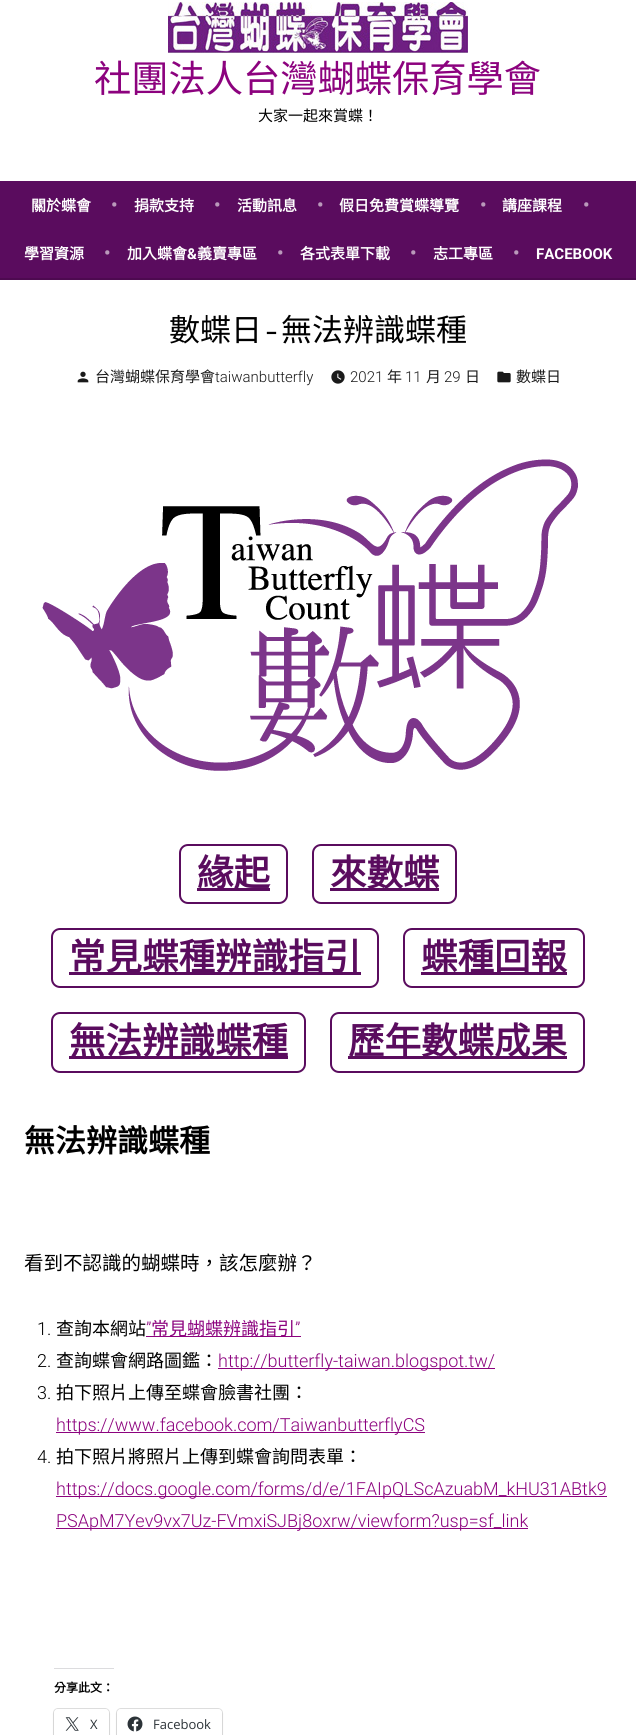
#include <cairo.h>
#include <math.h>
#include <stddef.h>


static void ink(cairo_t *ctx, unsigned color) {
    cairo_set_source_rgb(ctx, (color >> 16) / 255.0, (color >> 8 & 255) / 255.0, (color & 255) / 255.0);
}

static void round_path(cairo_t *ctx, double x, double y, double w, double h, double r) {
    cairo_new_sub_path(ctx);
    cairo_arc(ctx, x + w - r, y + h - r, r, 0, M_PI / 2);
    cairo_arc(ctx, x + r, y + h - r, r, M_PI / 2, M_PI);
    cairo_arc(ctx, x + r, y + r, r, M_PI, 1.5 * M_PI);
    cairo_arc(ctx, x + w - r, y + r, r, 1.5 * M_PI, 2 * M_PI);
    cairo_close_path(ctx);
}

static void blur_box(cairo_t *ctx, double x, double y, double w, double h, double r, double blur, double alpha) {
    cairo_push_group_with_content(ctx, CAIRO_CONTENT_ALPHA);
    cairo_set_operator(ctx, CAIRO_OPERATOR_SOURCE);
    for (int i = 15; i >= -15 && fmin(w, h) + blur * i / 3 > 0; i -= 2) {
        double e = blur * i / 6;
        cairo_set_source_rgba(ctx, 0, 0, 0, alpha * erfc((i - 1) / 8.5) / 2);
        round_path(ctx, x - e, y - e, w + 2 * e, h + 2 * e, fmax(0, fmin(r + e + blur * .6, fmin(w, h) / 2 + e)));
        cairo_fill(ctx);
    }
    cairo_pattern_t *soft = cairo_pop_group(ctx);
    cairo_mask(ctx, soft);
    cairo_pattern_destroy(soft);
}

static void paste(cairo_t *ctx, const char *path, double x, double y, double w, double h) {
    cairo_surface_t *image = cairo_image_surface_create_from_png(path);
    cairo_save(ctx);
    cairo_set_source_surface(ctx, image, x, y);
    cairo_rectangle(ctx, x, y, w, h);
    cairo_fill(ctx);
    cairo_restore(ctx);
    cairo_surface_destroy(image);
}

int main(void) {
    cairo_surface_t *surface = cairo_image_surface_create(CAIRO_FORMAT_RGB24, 636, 1735);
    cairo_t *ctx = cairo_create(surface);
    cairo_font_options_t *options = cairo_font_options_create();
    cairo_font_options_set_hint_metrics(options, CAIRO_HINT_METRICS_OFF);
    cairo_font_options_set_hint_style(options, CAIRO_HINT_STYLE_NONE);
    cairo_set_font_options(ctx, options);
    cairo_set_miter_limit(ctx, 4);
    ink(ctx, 0xFFFFFF);
    cairo_paint(ctx);
    paste(ctx, "media/1.png", 168, 2, 300, 51);
    cairo_select_font_face(ctx, "Noto Sans CJK TC", CAIRO_FONT_SLANT_NORMAL, CAIRO_FONT_WEIGHT_NORMAL);
    cairo_set_font_size(ctx, 37.25);
    ink(ctx, 0x8C027E);
    cairo_move_to(ctx, 94, 92);
    cairo_show_text(ctx, "社團法人台灣蝴蝶保育學會");
    cairo_set_font_size(ctx, 15);
    ink(ctx, 0x000000);
    cairo_move_to(ctx, 258, 121);
    cairo_show_text(ctx, "大家一起來賞蝶！");
    ink(ctx, 0x5A0C5E);
    cairo_rectangle(ctx, 0, 181, 636, 97);
    cairo_fill(ctx);
    ink(ctx, 0x4D0A50);
    cairo_rectangle(ctx, 0, 278, 636, 2);
    cairo_fill(ctx);
    cairo_select_font_face(ctx, "Noto Sans CJK TC", CAIRO_FONT_SLANT_NORMAL, CAIRO_FONT_WEIGHT_BOLD);
    ink(ctx, 0xFFFFFF);
    cairo_move_to(ctx, 31, 211);
    cairo_show_text(ctx, "關於蝶會");
    cairo_select_font_face(ctx, "Roboto", CAIRO_FONT_SLANT_NORMAL, CAIRO_FONT_WEIGHT_BOLD);
    cairo_set_font_size(ctx, 18);
    ink(ctx, 0xBA99BB);
    cairo_move_to(ctx, 111, 211);
    cairo_show_text(ctx, "•");
    cairo_select_font_face(ctx, "Noto Sans CJK TC", CAIRO_FONT_SLANT_NORMAL, CAIRO_FONT_WEIGHT_BOLD);
    cairo_set_font_size(ctx, 15);
    ink(ctx, 0xFFFFFF);
    cairo_move_to(ctx, 134, 211);
    cairo_show_text(ctx, "捐款支持");
    cairo_select_font_face(ctx, "Roboto", CAIRO_FONT_SLANT_NORMAL, CAIRO_FONT_WEIGHT_BOLD);
    cairo_set_font_size(ctx, 18);
    ink(ctx, 0xBA99BB);
    cairo_move_to(ctx, 214, 211);
    cairo_show_text(ctx, "•");
    cairo_select_font_face(ctx, "Noto Sans CJK TC", CAIRO_FONT_SLANT_NORMAL, CAIRO_FONT_WEIGHT_BOLD);
    cairo_set_font_size(ctx, 15);
    ink(ctx, 0xFFFFFF);
    cairo_move_to(ctx, 237, 211);
    cairo_show_text(ctx, "活動訊息");
    cairo_select_font_face(ctx, "Roboto", CAIRO_FONT_SLANT_NORMAL, CAIRO_FONT_WEIGHT_BOLD);
    cairo_set_font_size(ctx, 18);
    ink(ctx, 0xBA99BB);
    cairo_move_to(ctx, 317, 211);
    cairo_show_text(ctx, "•");
    cairo_select_font_face(ctx, "Noto Sans CJK TC", CAIRO_FONT_SLANT_NORMAL, CAIRO_FONT_WEIGHT_BOLD);
    cairo_set_font_size(ctx, 15);
    ink(ctx, 0xFFFFFF);
    cairo_move_to(ctx, 339, 211);
    cairo_show_text(ctx, "假日免費賞蝶導覽");
    cairo_select_font_face(ctx, "Roboto", CAIRO_FONT_SLANT_NORMAL, CAIRO_FONT_WEIGHT_BOLD);
    cairo_set_font_size(ctx, 18);
    ink(ctx, 0xBA99BB);
    cairo_move_to(ctx, 480, 211);
    cairo_show_text(ctx, "•");
    cairo_select_font_face(ctx, "Noto Sans CJK TC", CAIRO_FONT_SLANT_NORMAL, CAIRO_FONT_WEIGHT_BOLD);
    cairo_set_font_size(ctx, 15);
    ink(ctx, 0xFFFFFF);
    cairo_move_to(ctx, 502, 211);
    cairo_show_text(ctx, "講座課程");
    cairo_select_font_face(ctx, "Roboto", CAIRO_FONT_SLANT_NORMAL, CAIRO_FONT_WEIGHT_BOLD);
    cairo_set_font_size(ctx, 18);
    ink(ctx, 0xBA99BB);
    cairo_move_to(ctx, 583, 211);
    cairo_show_text(ctx, "•");
    cairo_select_font_face(ctx, "Noto Sans CJK TC", CAIRO_FONT_SLANT_NORMAL, CAIRO_FONT_WEIGHT_BOLD);
    cairo_set_font_size(ctx, 15);
    ink(ctx, 0xFFFFFF);
    cairo_move_to(ctx, 24, 259);
    cairo_show_text(ctx, "學習資源");
    cairo_select_font_face(ctx, "Roboto", CAIRO_FONT_SLANT_NORMAL, CAIRO_FONT_WEIGHT_BOLD);
    cairo_set_font_size(ctx, 18);
    ink(ctx, 0xBA99BB);
    cairo_move_to(ctx, 104, 259);
    cairo_show_text(ctx, "•");
    cairo_select_font_face(ctx, "Noto Sans CJK TC", CAIRO_FONT_SLANT_NORMAL, CAIRO_FONT_WEIGHT_BOLD);
    cairo_set_font_size(ctx, 15);
    ink(ctx, 0xFFFFFF);
    cairo_move_to(ctx, 127, 259);
    cairo_show_text(ctx, "加入蝶會");
    cairo_select_font_face(ctx, "Roboto", CAIRO_FONT_SLANT_NORMAL, CAIRO_FONT_WEIGHT_BOLD);
    cairo_move_to(ctx, 187, 259);
    cairo_show_text(ctx, "&");
    cairo_select_font_face(ctx, "Noto Sans CJK TC", CAIRO_FONT_SLANT_NORMAL, CAIRO_FONT_WEIGHT_BOLD);
    cairo_move_to(ctx, 197, 259);
    cairo_show_text(ctx, "義賣專區");
    cairo_select_font_face(ctx, "Roboto", CAIRO_FONT_SLANT_NORMAL, CAIRO_FONT_WEIGHT_BOLD);
    cairo_set_font_size(ctx, 18);
    ink(ctx, 0xBA99BB);
    cairo_move_to(ctx, 277, 259);
    cairo_show_text(ctx, "•");
    cairo_select_font_face(ctx, "Noto Sans CJK TC", CAIRO_FONT_SLANT_NORMAL, CAIRO_FONT_WEIGHT_BOLD);
    cairo_set_font_size(ctx, 15);
    ink(ctx, 0xFFFFFF);
    cairo_move_to(ctx, 300, 259);
    cairo_show_text(ctx, "各式表單下載");
    cairo_select_font_face(ctx, "Roboto", CAIRO_FONT_SLANT_NORMAL, CAIRO_FONT_WEIGHT_BOLD);
    cairo_set_font_size(ctx, 18);
    ink(ctx, 0xBA99BB);
    cairo_move_to(ctx, 410, 259);
    cairo_show_text(ctx, "•");
    cairo_select_font_face(ctx, "Noto Sans CJK TC", CAIRO_FONT_SLANT_NORMAL, CAIRO_FONT_WEIGHT_BOLD);
    cairo_set_font_size(ctx, 15);
    ink(ctx, 0xFFFFFF);
    cairo_move_to(ctx, 433, 259);
    cairo_show_text(ctx, "志工專區");
    cairo_select_font_face(ctx, "Roboto", CAIRO_FONT_SLANT_NORMAL, CAIRO_FONT_WEIGHT_BOLD);
    cairo_set_font_size(ctx, 18);
    ink(ctx, 0xBA99BB);
    cairo_move_to(ctx, 513, 259);
    cairo_show_text(ctx, "•");
    cairo_set_font_size(ctx, 15);
    ink(ctx, 0xFFFFFF);
    cairo_move_to(ctx, 536, 259);
    cairo_show_text(ctx, "FACEBOOK");
    cairo_select_font_face(ctx, "Noto Sans CJK TC", CAIRO_FONT_SLANT_NORMAL, CAIRO_FONT_WEIGHT_NORMAL);
    cairo_set_font_size(ctx, 31);
    ink(ctx, 0x000000);
    cairo_move_to(ctx, 169, 341);
    cairo_show_text(ctx, "數蝶日");
    cairo_select_font_face(ctx, "Space Mono", CAIRO_FONT_SLANT_NORMAL, CAIRO_FONT_WEIGHT_NORMAL);
    cairo_move_to(ctx, 262, 341);
    cairo_show_text(ctx, "-");
    cairo_select_font_face(ctx, "Noto Sans CJK TC", CAIRO_FONT_SLANT_NORMAL, CAIRO_FONT_WEIGHT_NORMAL);
    cairo_move_to(ctx, 281, 341);
    cairo_show_text(ctx, "無法辨識蝶種");
    paste(ctx, "media/2.png", 77, 371, 12, 12);
    cairo_set_font_size(ctx, 15);
    ink(ctx, 0x1A1A1A);
    cairo_move_to(ctx, 95, 382);
    cairo_show_text(ctx, "台灣蝴蝶保育學會");
    cairo_select_font_face(ctx, "Roboto Light", CAIRO_FONT_SLANT_NORMAL, CAIRO_FONT_WEIGHT_NORMAL);
    cairo_move_to(ctx, 215, 382);
    cairo_show_text(ctx, "taiwanbutterfly");
    paste(ctx, "media/3.png", 331, 370, 14, 14);
    cairo_move_to(ctx, 350, 382);
    cairo_show_text(ctx, "2021");
    cairo_select_font_face(ctx, "Noto Sans CJK TC", CAIRO_FONT_SLANT_NORMAL, CAIRO_FONT_WEIGHT_NORMAL);
    cairo_move_to(ctx, 387, 382);
    cairo_show_text(ctx, "年");
    cairo_select_font_face(ctx, "Roboto Light", CAIRO_FONT_SLANT_NORMAL, CAIRO_FONT_WEIGHT_NORMAL);
    cairo_move_to(ctx, 405, 382);
    cairo_show_text(ctx, "11");
    cairo_select_font_face(ctx, "Noto Sans CJK TC", CAIRO_FONT_SLANT_NORMAL, CAIRO_FONT_WEIGHT_NORMAL);
    cairo_move_to(ctx, 426, 382);
    cairo_show_text(ctx, "月");
    cairo_select_font_face(ctx, "Roboto Light", CAIRO_FONT_SLANT_NORMAL, CAIRO_FONT_WEIGHT_NORMAL);
    cairo_move_to(ctx, 444, 382);
    cairo_show_text(ctx, "29");
    cairo_select_font_face(ctx, "Noto Sans CJK TC", CAIRO_FONT_SLANT_NORMAL, CAIRO_FONT_WEIGHT_NORMAL);
    cairo_move_to(ctx, 465, 382);
    cairo_show_text(ctx, "日");
    paste(ctx, "media/4.png", 497, 371, 14, 12);
    cairo_move_to(ctx, 516, 382);
    cairo_show_text(ctx, "數蝶日");
    paste(ctx, "media/5.png", 42, 459, 536, 312);
    round_path(ctx, 180, 845, 107, 58, 8);
    ink(ctx, 0x5A0C5E);
    cairo_stroke(ctx);
    cairo_rectangle(ctx, 197, 888, 73, 3);
    cairo_fill(ctx);
    cairo_select_font_face(ctx, "Noto Sans CJK TC", CAIRO_FONT_SLANT_NORMAL, CAIRO_FONT_WEIGHT_BOLD);
    cairo_set_font_size(ctx, 36.5);
    cairo_move_to(ctx, 197, 886);
    cairo_show_text(ctx, "緣起");
    round_path(ctx, 313, 845, 143, 58, 8);
    cairo_stroke(ctx);
    cairo_rectangle(ctx, 330, 888, 109, 3);
    cairo_fill(ctx);
    cairo_move_to(ctx, 330, 886);
    cairo_show_text(ctx, "來數蝶");
    round_path(ctx, 52, 929, 326, 58, 8);
    cairo_stroke(ctx);
    cairo_rectangle(ctx, 69, 972, 292, 3);
    cairo_fill(ctx);
    cairo_move_to(ctx, 69, 970);
    cairo_show_text(ctx, "常見蝶種辨識指引");
    round_path(ctx, 404, 929, 180, 58, 8);
    cairo_stroke(ctx);
    cairo_rectangle(ctx, 421, 972, 146, 3);
    cairo_fill(ctx);
    cairo_move_to(ctx, 421, 970);
    cairo_show_text(ctx, "蝶種回報");
    round_path(ctx, 52, 1013, 253, 59, 8);
    cairo_stroke(ctx);
    cairo_rectangle(ctx, 69, 1056, 219, 3);
    cairo_fill(ctx);
    cairo_move_to(ctx, 69, 1054);
    cairo_show_text(ctx, "無法辨識蝶種");
    round_path(ctx, 331, 1013, 253, 59, 8);
    cairo_stroke(ctx);
    cairo_rectangle(ctx, 348, 1056, 219, 3);
    cairo_fill(ctx);
    cairo_move_to(ctx, 348, 1054);
    cairo_show_text(ctx, "歷年數蝶成果");
    cairo_set_font_size(ctx, 31);
    ink(ctx, 0x000000);
    cairo_move_to(ctx, 24, 1152);
    cairo_show_text(ctx, "無法辨識蝶種");
    cairo_select_font_face(ctx, "Noto Sans CJK TC", CAIRO_FONT_SLANT_NORMAL, CAIRO_FONT_WEIGHT_NORMAL);
    cairo_set_font_size(ctx, 19.5);
    cairo_move_to(ctx, 24, 1270);
    cairo_show_text(ctx, "看到不認識的蝴蝶時，該怎麼辦？");
    cairo_select_font_face(ctx, "Roboto Light", CAIRO_FONT_SLANT_NORMAL, CAIRO_FONT_WEIGHT_NORMAL);
    cairo_set_font_size(ctx, 18);
    cairo_move_to(ctx, 37, 1335);
    cairo_show_text(ctx, "1.");
    cairo_select_font_face(ctx, "Noto Sans CJK TC", CAIRO_FONT_SLANT_NORMAL, CAIRO_FONT_WEIGHT_NORMAL);
    cairo_move_to(ctx, 56, 1335);
    cairo_show_text(ctx, "查詢本網站");
    cairo_select_font_face(ctx, "Roboto Light", CAIRO_FONT_SLANT_NORMAL, CAIRO_FONT_WEIGHT_NORMAL);
    ink(ctx, 0x8C027E);
    cairo_move_to(ctx, 146, 1335);
    cairo_show_text(ctx, "”");
    cairo_rectangle(ctx, 146, 1336, 155, 1);
    cairo_fill(ctx);
    cairo_select_font_face(ctx, "Noto Sans CJK TC", CAIRO_FONT_SLANT_NORMAL, CAIRO_FONT_WEIGHT_NORMAL);
    cairo_move_to(ctx, 151, 1335);
    cairo_show_text(ctx, "常見蝴蝶辨識指引");
    cairo_select_font_face(ctx, "Roboto Light", CAIRO_FONT_SLANT_NORMAL, CAIRO_FONT_WEIGHT_NORMAL);
    cairo_move_to(ctx, 295, 1335);
    cairo_show_text(ctx, "”");
    ink(ctx, 0x000000);
    cairo_move_to(ctx, 37, 1367);
    cairo_show_text(ctx, "2.");
    cairo_select_font_face(ctx, "Noto Sans CJK TC", CAIRO_FONT_SLANT_NORMAL, CAIRO_FONT_WEIGHT_NORMAL);
    cairo_move_to(ctx, 56, 1367);
    cairo_show_text(ctx, "查詢蝶會網路圖鑑：");
    ink(ctx, 0x8C027E);
    cairo_rectangle(ctx, 218, 1368, 277, 1);
    cairo_fill(ctx);
    cairo_select_font_face(ctx, "Roboto Light", CAIRO_FONT_SLANT_NORMAL, CAIRO_FONT_WEIGHT_NORMAL);
    cairo_move_to(ctx, 218, 1367);
    cairo_show_text(ctx, "http://butterfly-taiwan.blogspot.tw/");
    ink(ctx, 0x000000);
    cairo_move_to(ctx, 37, 1399);
    cairo_show_text(ctx, "3.");
    cairo_select_font_face(ctx, "Noto Sans CJK TC", CAIRO_FONT_SLANT_NORMAL, CAIRO_FONT_WEIGHT_NORMAL);
    cairo_move_to(ctx, 56, 1399);
    cairo_show_text(ctx, "拍下照片上傳至蝶會臉書社團：");
    ink(ctx, 0x8C027E);
    cairo_rectangle(ctx, 56, 1432, 369, 1);
    cairo_fill(ctx);
    cairo_select_font_face(ctx, "Roboto Light", CAIRO_FONT_SLANT_NORMAL, CAIRO_FONT_WEIGHT_NORMAL);
    cairo_move_to(ctx, 56, 1431);
    cairo_show_text(ctx, "https://www.facebook.com/TaiwanbutterflyCS");
    ink(ctx, 0x000000);
    cairo_move_to(ctx, 37, 1463);
    cairo_show_text(ctx, "4.");
    cairo_select_font_face(ctx, "Noto Sans CJK TC", CAIRO_FONT_SLANT_NORMAL, CAIRO_FONT_WEIGHT_NORMAL);
    cairo_move_to(ctx, 56, 1463);
    cairo_show_text(ctx, "拍下照片將照片上傳到蝶會詢問表單：");
    ink(ctx, 0x8C027E);
    cairo_rectangle(ctx, 56, 1496, 551, 1);
    cairo_fill(ctx);
    cairo_select_font_face(ctx, "Roboto Light", CAIRO_FONT_SLANT_NORMAL, CAIRO_FONT_WEIGHT_NORMAL);
    cairo_move_to(ctx, 56, 1495);
    cairo_show_text(ctx, "https://docs.google.com/forms/d/e/1FAIpQLScAzuabM_kHU31ABtk9");
    cairo_rectangle(ctx, 56, 1528, 472, 1);
    cairo_fill(ctx);
    cairo_move_to(ctx, 56, 1527);
    cairo_show_text(ctx, "PSApM7Yev9vx7Uz-FVmxiSJBj8oxrw/viewform?usp=sf_link");
    ink(ctx, 0xDCDCDE);
    cairo_rectangle(ctx, 54, 1668, 60, 1);
    cairo_fill(ctx);
    cairo_select_font_face(ctx, "Noto Sans CJK TC", CAIRO_FONT_SLANT_NORMAL, CAIRO_FONT_WEIGHT_BOLD);
    cairo_set_font_size(ctx, 12);
    ink(ctx, 0x000000);
    cairo_move_to(ctx, 54, 1692);
    cairo_show_text(ctx, "分享此文：");
    round_path(ctx, 53.5, 1708.5, 56, 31, 4.5);
    ink(ctx, 0xE0E0E0);
    cairo_set_line_width(ctx, 1);
    cairo_stroke(ctx);
    ink(ctx, 0x000000);
    blur_box(ctx, 54, 1710, 55, 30, 4, 1, 0.12);
    ink(ctx, 0xFFFFFF);
    round_path(ctx, 54, 1709, 55, 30, 4);
    cairo_fill(ctx);
    paste(ctx, "media/6.png", 65, 1717, 14, 14);
    cairo_select_font_face(ctx, "Open Sans", CAIRO_FONT_SLANT_NORMAL, CAIRO_FONT_WEIGHT_NORMAL);
    cairo_set_font_size(ctx, 13);
    ink(ctx, 0x2C3338);
    cairo_move_to(ctx, 90, 1729);
    cairo_show_text(ctx, "X");
    round_path(ctx, 116.5, 1708.5, 106, 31, 4.5);
    ink(ctx, 0xE0E0E0);
    cairo_stroke(ctx);
    ink(ctx, 0x000000);
    blur_box(ctx, 117, 1710, 105, 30, 4, 1, 0.12);
    ink(ctx, 0xFFFFFF);
    round_path(ctx, 117, 1709, 105, 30, 4);
    cairo_fill(ctx);
    paste(ctx, "media/7.png", 127, 1716, 16, 16);
    ink(ctx, 0x2C3338);
    cairo_move_to(ctx, 153, 1729);
    cairo_show_text(ctx, "Facebook");
    cairo_surface_write_to_png(surface, "image.png");
    cairo_font_options_destroy(options);
    cairo_destroy(ctx);
    cairo_surface_destroy(surface);
    return 0;
}
